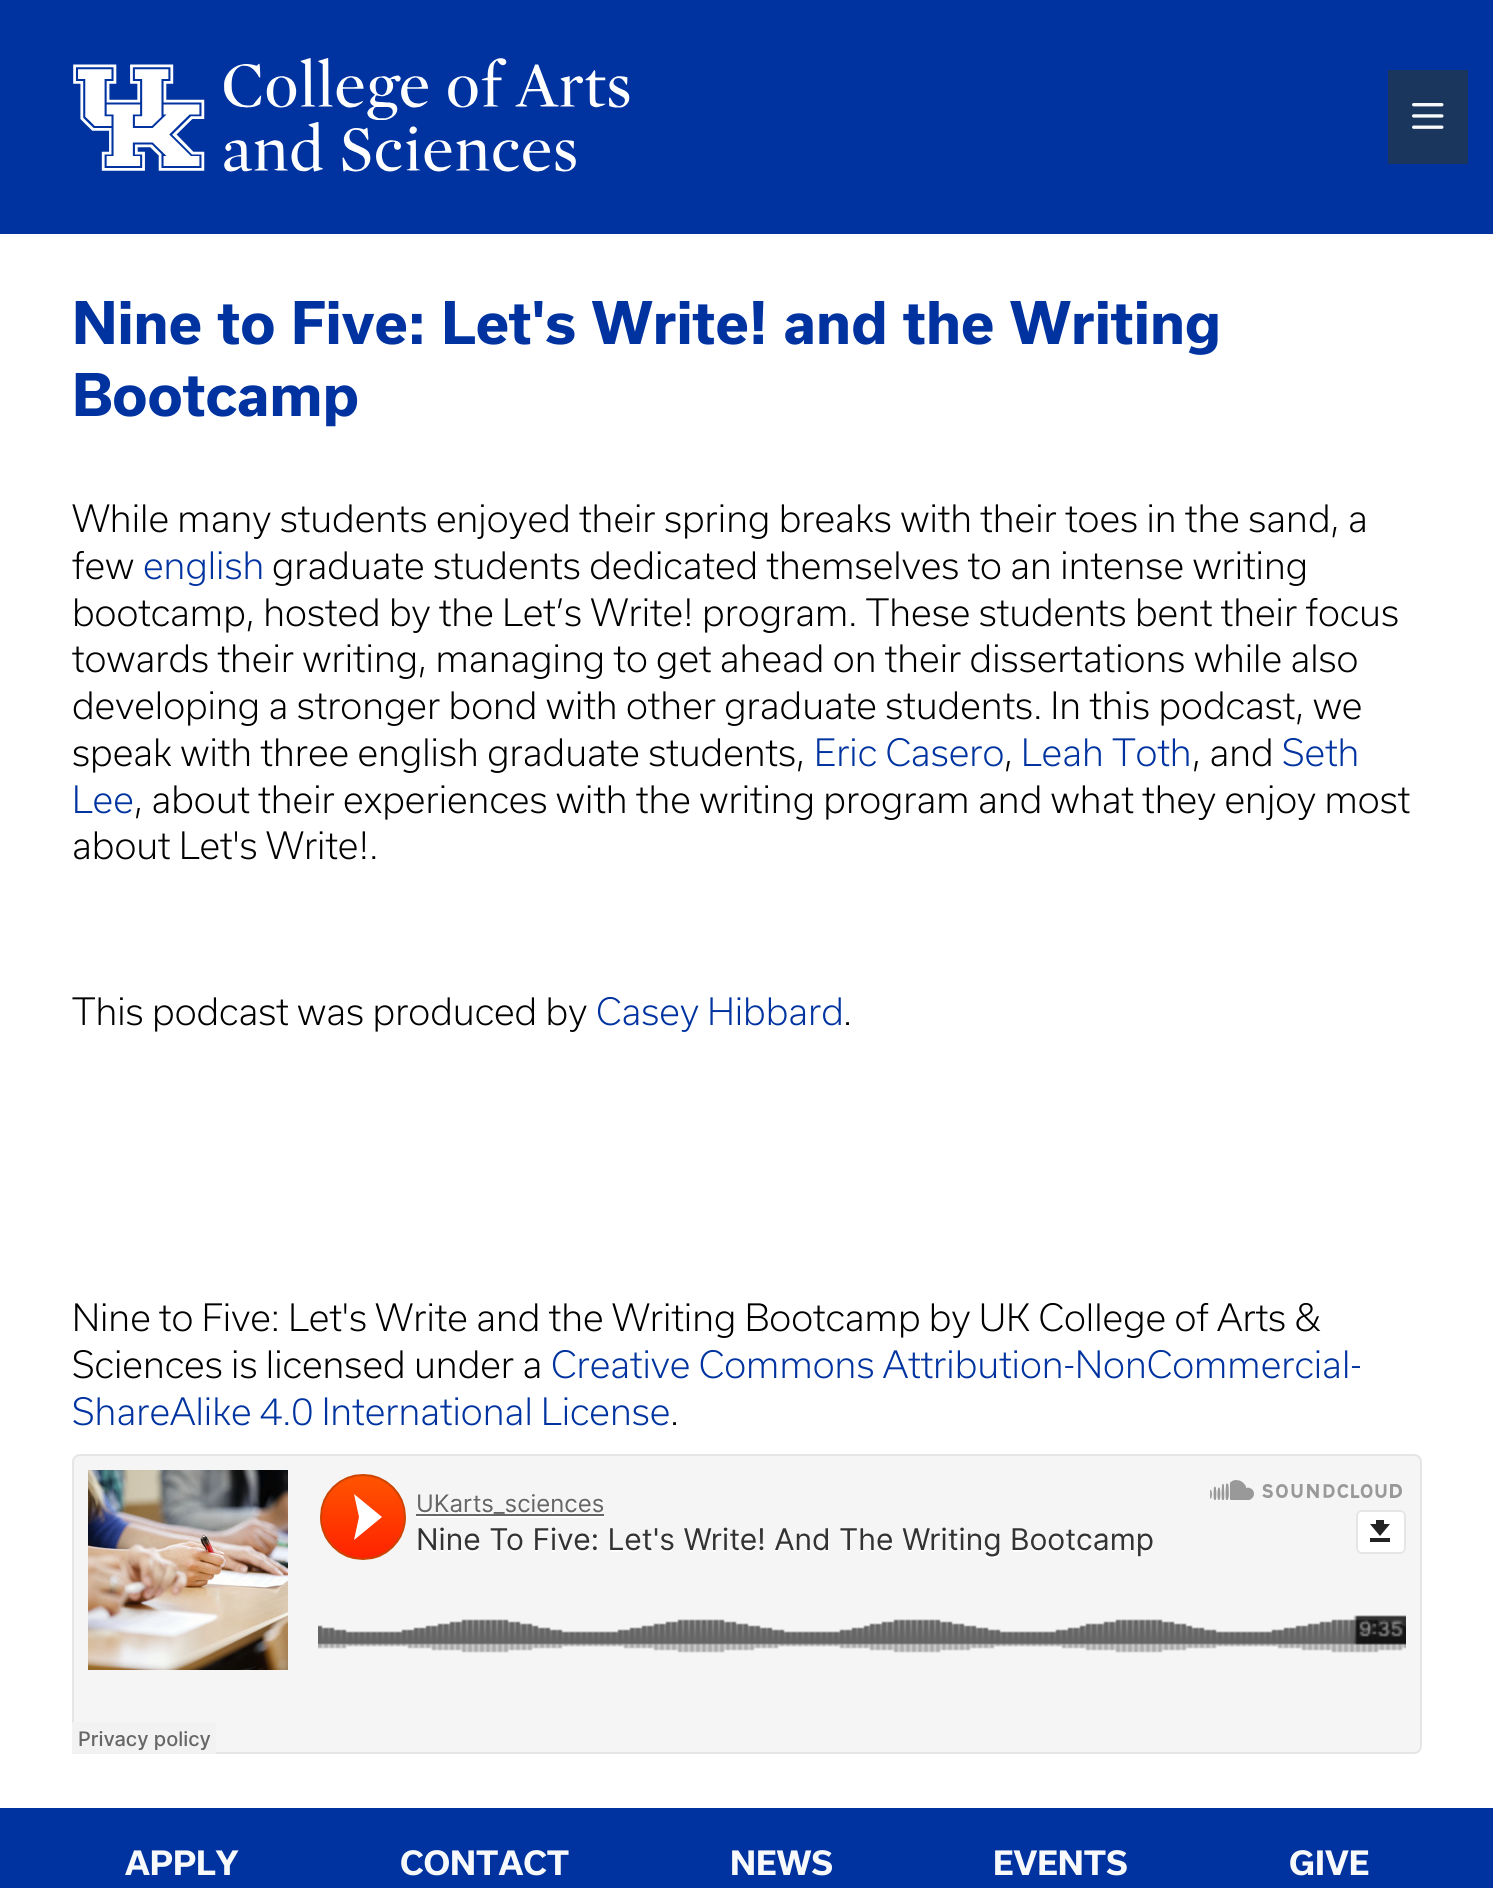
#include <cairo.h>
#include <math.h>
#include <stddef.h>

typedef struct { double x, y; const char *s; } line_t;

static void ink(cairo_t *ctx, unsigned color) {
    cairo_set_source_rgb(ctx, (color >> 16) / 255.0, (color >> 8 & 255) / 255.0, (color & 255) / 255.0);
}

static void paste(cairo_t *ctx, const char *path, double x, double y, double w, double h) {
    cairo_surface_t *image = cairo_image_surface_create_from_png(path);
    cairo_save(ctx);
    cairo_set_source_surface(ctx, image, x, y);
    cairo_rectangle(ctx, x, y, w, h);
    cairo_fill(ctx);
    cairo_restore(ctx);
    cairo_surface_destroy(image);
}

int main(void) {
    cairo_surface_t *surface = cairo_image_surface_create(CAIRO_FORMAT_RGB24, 1493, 1888);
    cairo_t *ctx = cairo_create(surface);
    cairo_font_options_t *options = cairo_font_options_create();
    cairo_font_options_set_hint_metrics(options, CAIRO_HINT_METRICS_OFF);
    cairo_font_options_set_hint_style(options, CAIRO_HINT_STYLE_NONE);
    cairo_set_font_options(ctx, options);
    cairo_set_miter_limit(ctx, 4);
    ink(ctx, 0x0033A0);
    cairo_paint(ctx);
    paste(ctx, "media/1.png", 73, 58, 557, 114);
    ink(ctx, 0x1B365D);
    cairo_rectangle(ctx, 1388, 70, 80, 94);
    cairo_fill(ctx);
    paste(ctx, "media/2.png", 1412, 103, 32, 26);
    ink(ctx, 0xFFFFFF);
    cairo_rectangle(ctx, 0, 234, 1493, 1574);
    cairo_fill(ctx);
    cairo_select_font_face(ctx, "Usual", CAIRO_FONT_SLANT_NORMAL, CAIRO_FONT_WEIGHT_BOLD);
    cairo_set_font_size(ctx, 56);
    ink(ctx, 0x0033A0);
    cairo_move_to(ctx, 72, 344);
    cairo_show_text(ctx, "Nine to Five: Let's Write! and the Writing");
    cairo_move_to(ctx, 72, 416);
    cairo_show_text(ctx, "Bootcamp");
    cairo_select_font_face(ctx, "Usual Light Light", CAIRO_FONT_SLANT_NORMAL, CAIRO_FONT_WEIGHT_NORMAL);
    cairo_set_font_size(ctx, 36);
    ink(ctx, 0x000000);
    cairo_move_to(ctx, 72, 532);
    cairo_show_text(ctx, "While many students enjoyed their spring breaks with their toes in the sand, a");
    cairo_move_to(ctx, 72, 579);
    cairo_show_text(ctx, "few");
    ink(ctx, 0x0033A0);
    cairo_move_to(ctx, 143, 579);
    cairo_show_text(ctx, "english");
    ink(ctx, 0x000000);
    {
        static const line_t items[] = {
            {272, 579, "graduate students dedicated themselves to an intense writing"},
            {72, 626, "bootcamp, hosted by the Let’s Write! program. These students bent their focus"},
            {72, 672, "towards their writing, managing to get ahead on their dissertations while also"},
            {72, 719, "developing a stronger bond with other graduate students. In this podcast, we"},
            {72, 766, "speak with three english graduate students,"},
        };
        for (size_t i = 0; i < sizeof items / sizeof *items; i++) {
            cairo_move_to(ctx, items[i].x, items[i].y);
            cairo_show_text(ctx, items[i].s);
        }
    }
    ink(ctx, 0x0033A0);
    cairo_move_to(ctx, 814, 766);
    cairo_show_text(ctx, "Eric Casero");
    ink(ctx, 0x000000);
    cairo_move_to(ctx, 1004, 766);
    cairo_show_text(ctx, ",");
    ink(ctx, 0x0033A0);
    cairo_move_to(ctx, 1021, 766);
    cairo_show_text(ctx, "Leah Toth");
    ink(ctx, 0x000000);
    cairo_move_to(ctx, 1192, 766);
    cairo_show_text(ctx, ", and");
    ink(ctx, 0x0033A0);
    cairo_move_to(ctx, 1282, 766);
    cairo_show_text(ctx, "Seth");
    cairo_move_to(ctx, 72, 813);
    cairo_show_text(ctx, "Lee");
    ink(ctx, 0x000000);
    {
        static const line_t items[] = {
            {134, 813, ", about their experiences with the writing program and what they enjoy most"},
            {72, 859, "about Let's Write!."},
            {72, 1025, "This podcast was produced by"},
        };
        for (size_t i = 0; i < sizeof items / sizeof *items; i++) {
            cairo_move_to(ctx, items[i].x, items[i].y);
            cairo_show_text(ctx, items[i].s);
        }
    }
    ink(ctx, 0x0033A0);
    cairo_move_to(ctx, 596, 1025);
    cairo_show_text(ctx, "Casey Hibbard");
    ink(ctx, 0x000000);
    {
        static const line_t items[] = {
            {843, 1025, "."},
            {72, 1331, "Nine to Five: Let's Write and the Writing Bootcamp by UK College of Arts &"},
            {72, 1378, "Sciences is licensed under a"},
        };
        for (size_t i = 0; i < sizeof items / sizeof *items; i++) {
            cairo_move_to(ctx, items[i].x, items[i].y);
            cairo_show_text(ctx, items[i].s);
        }
    }
    ink(ctx, 0x0033A0);
    cairo_move_to(ctx, 551, 1378);
    cairo_show_text(ctx, "Creative Commons Attribution-NonCommercial-");
    cairo_move_to(ctx, 72, 1425);
    cairo_show_text(ctx, "ShareAlike 4.0 International License");
    ink(ctx, 0x000000);
    cairo_move_to(ctx, 670, 1425);
    cairo_show_text(ctx, ".");
    paste(ctx, "media/3.png", 72, 1454, 1350, 300);
    cairo_select_font_face(ctx, "Usual", CAIRO_FONT_SLANT_NORMAL, CAIRO_FONT_WEIGHT_BOLD);
    cairo_set_font_size(ctx, 32);
    ink(ctx, 0xF8F9FA);
    {
        static const line_t items[] = {
            {125, 1875, "APPLY"},
            {400, 1875, "CONTACT"},
            {730, 1875, "NEWS"},
            {993, 1875, "EVENTS"},
            {1289, 1875, "GIVE"},
        };
        for (size_t i = 0; i < sizeof items / sizeof *items; i++) {
            cairo_move_to(ctx, items[i].x, items[i].y);
            cairo_show_text(ctx, items[i].s);
        }
    }
    cairo_surface_write_to_png(surface, "image.png");
    cairo_font_options_destroy(options);
    cairo_destroy(ctx);
    cairo_surface_destroy(surface);
    return 0;
}
